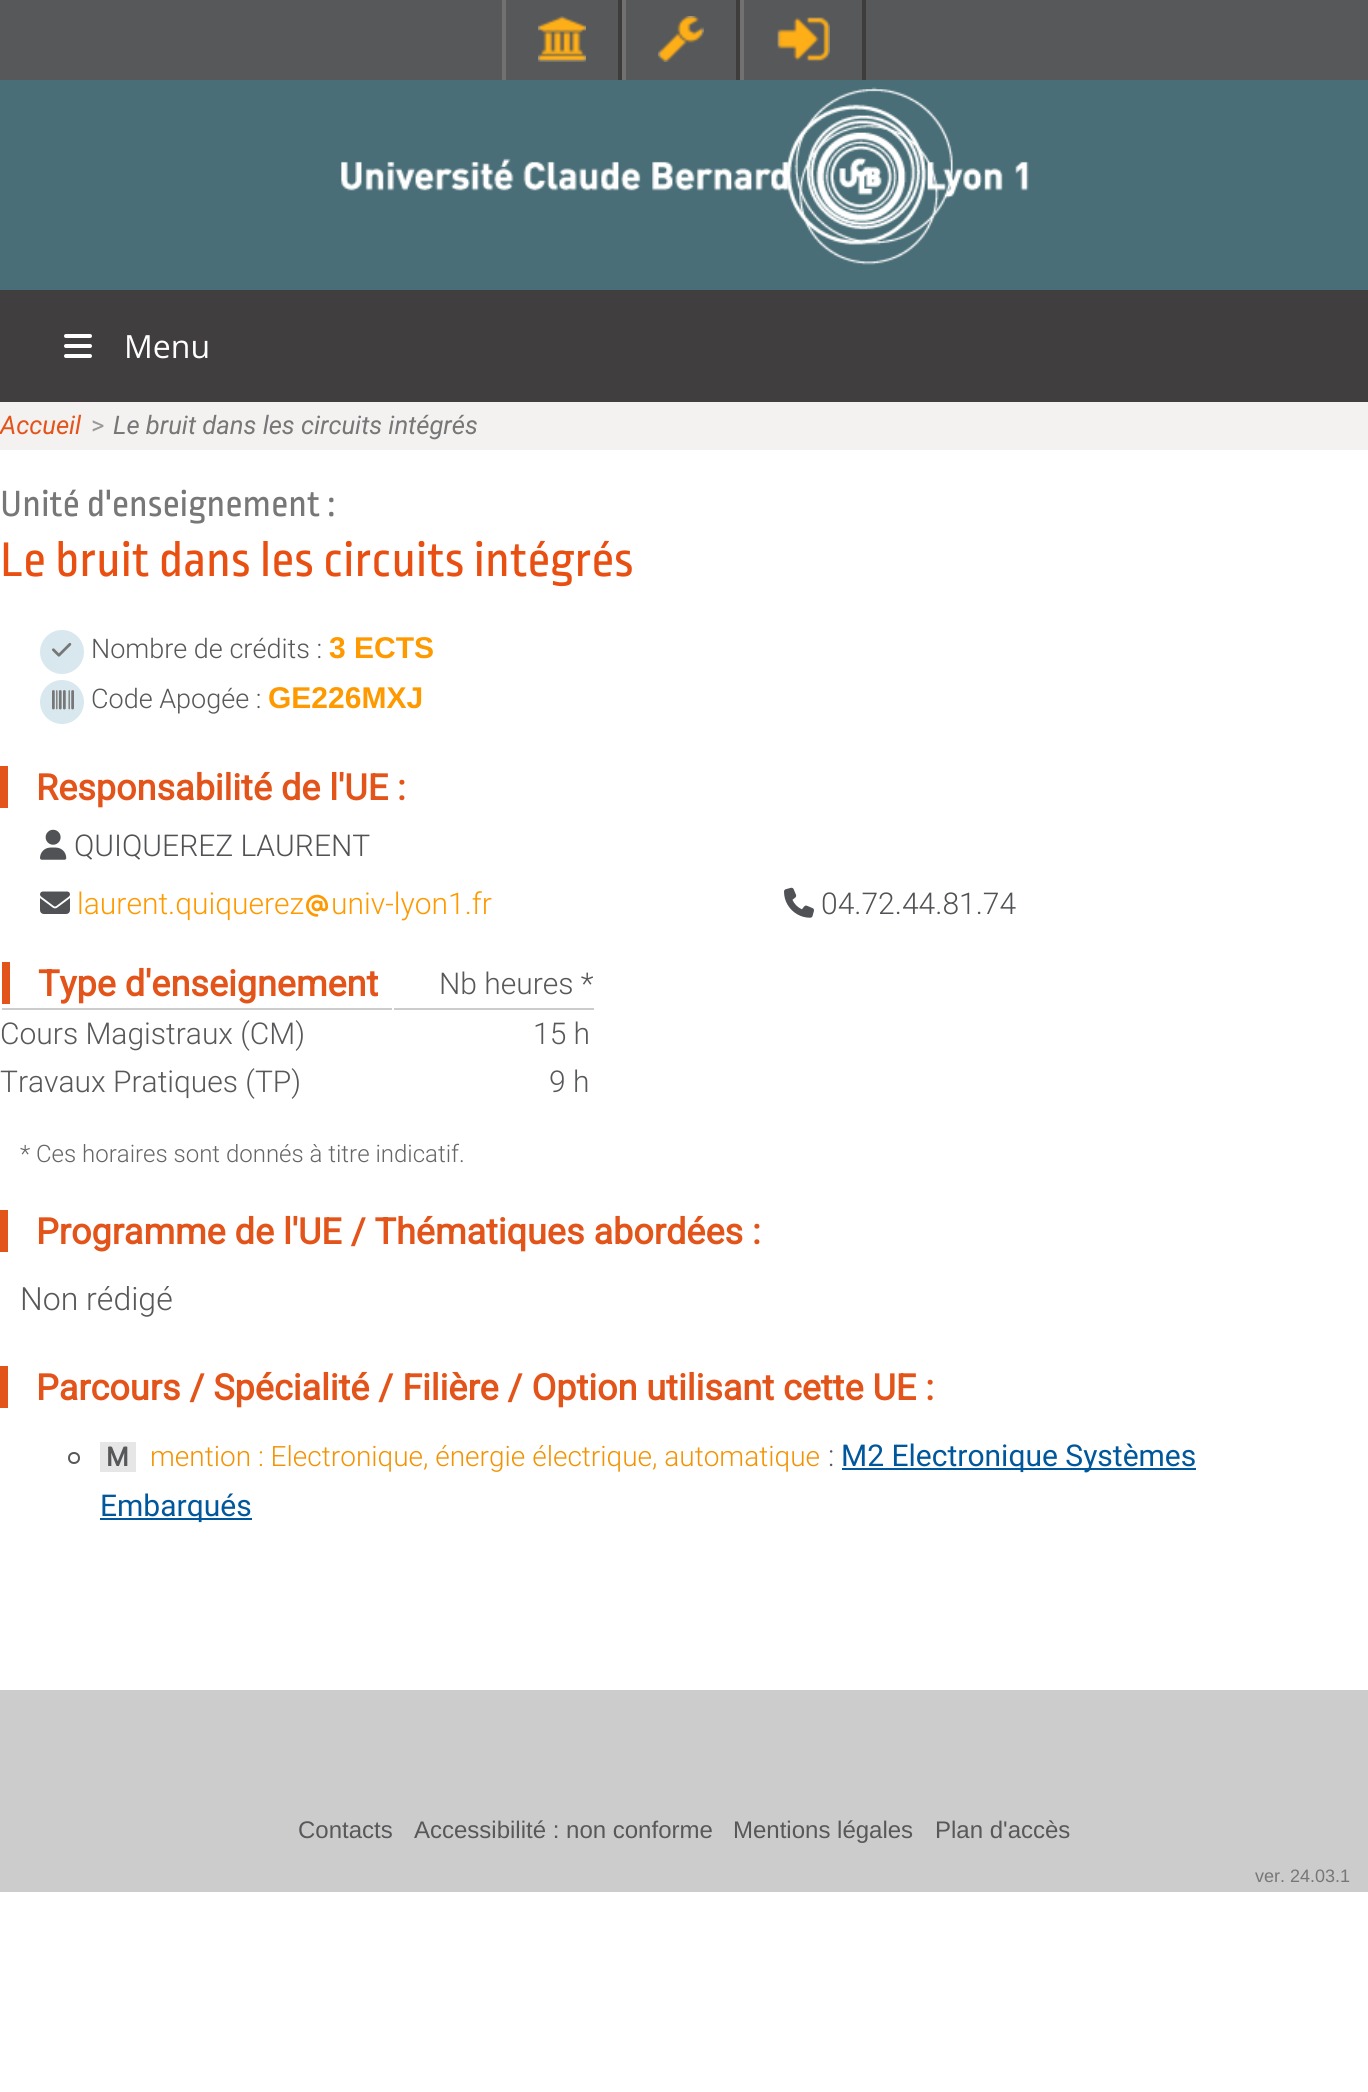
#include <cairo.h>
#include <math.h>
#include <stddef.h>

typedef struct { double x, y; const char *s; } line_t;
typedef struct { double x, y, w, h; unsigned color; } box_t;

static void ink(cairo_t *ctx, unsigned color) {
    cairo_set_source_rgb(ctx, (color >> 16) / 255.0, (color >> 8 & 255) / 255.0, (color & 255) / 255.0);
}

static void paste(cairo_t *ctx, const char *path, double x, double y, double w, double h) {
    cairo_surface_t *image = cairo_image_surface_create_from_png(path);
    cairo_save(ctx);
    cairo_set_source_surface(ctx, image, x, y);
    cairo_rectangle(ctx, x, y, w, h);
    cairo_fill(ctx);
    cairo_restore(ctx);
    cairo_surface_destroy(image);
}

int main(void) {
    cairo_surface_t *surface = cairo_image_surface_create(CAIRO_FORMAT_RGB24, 1368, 2092);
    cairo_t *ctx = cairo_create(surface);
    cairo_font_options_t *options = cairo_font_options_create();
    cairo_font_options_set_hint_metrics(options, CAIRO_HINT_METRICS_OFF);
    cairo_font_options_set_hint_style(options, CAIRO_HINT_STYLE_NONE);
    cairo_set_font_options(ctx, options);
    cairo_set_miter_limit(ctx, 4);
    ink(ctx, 0xFFFFFF);
    cairo_paint(ctx);
    {
        static const box_t items[] = {
            {0, 0, 1368, 80, 0x57585A},
            {618, 0, 4, 80, 0x3E3D3B},
            {502, 0, 4, 80, 0x727071},
        };
        for (size_t i = 0; i < sizeof items / sizeof *items; i++) {
            ink(ctx, items[i].color);
            cairo_rectangle(ctx, items[i].x, items[i].y, items[i].w, items[i].h);
            cairo_fill(ctx);
        }
    }
    paste(ctx, "media/1.png", 538, 16, 48, 46);
    ink(ctx, 0x3E3D3B);
    cairo_rectangle(ctx, 736, 0, 4, 80);
    cairo_fill(ctx);
    ink(ctx, 0x727071);
    cairo_rectangle(ctx, 622, 0, 4, 80);
    cairo_fill(ctx);
    paste(ctx, "media/2.png", 658, 16, 46, 46);
    ink(ctx, 0x3E3D3B);
    cairo_rectangle(ctx, 862, 0, 4, 80);
    cairo_fill(ctx);
    ink(ctx, 0x727071);
    cairo_rectangle(ctx, 740, 0, 4, 80);
    cairo_fill(ctx);
    paste(ctx, "media/3.png", 777, 17, 53, 45);
    ink(ctx, 0x496E77);
    cairo_rectangle(ctx, 0, 80, 1368, 210);
    cairo_fill(ctx);
    paste(ctx, "media/4.png", 341, 87, 688, 178);
    ink(ctx, 0x403E3F);
    cairo_rectangle(ctx, 0, 290, 1368, 112);
    cairo_fill(ctx);
    paste(ctx, "media/5.png", 64, 334, 28, 24);
    cairo_select_font_face(ctx, "Open Sans", CAIRO_FONT_SLANT_NORMAL, CAIRO_FONT_WEIGHT_NORMAL);
    cairo_set_font_size(ctx, 32);
    ink(ctx, 0xFFFFFF);
    cairo_move_to(ctx, 124, 358);
    cairo_show_text(ctx, "Menu");
    ink(ctx, 0xF4F1F1);
    cairo_rectangle(ctx, 0, 402, 1368, 48);
    cairo_fill(ctx);
    cairo_select_font_face(ctx, "Roboto", CAIRO_FONT_SLANT_ITALIC, CAIRO_FONT_WEIGHT_NORMAL);
    cairo_set_font_size(ctx, 25.6);
    ink(ctx, 0xE3541A);
    cairo_move_to(ctx, 0, 434);
    cairo_show_text(ctx, "Accueil");
    cairo_select_font_face(ctx, "Roboto", CAIRO_FONT_SLANT_NORMAL, CAIRO_FONT_WEIGHT_NORMAL);
    ink(ctx, 0x999999);
    cairo_move_to(ctx, 91, 434);
    cairo_show_text(ctx, ">");
    cairo_select_font_face(ctx, "Roboto", CAIRO_FONT_SLANT_ITALIC, CAIRO_FONT_WEIGHT_NORMAL);
    ink(ctx, 0x777777);
    cairo_move_to(ctx, 113, 434);
    cairo_show_text(ctx, "Le bruit dans les circuits intégrés");
    cairo_select_font_face(ctx, "Ropa Sans", CAIRO_FONT_SLANT_NORMAL, CAIRO_FONT_WEIGHT_NORMAL);
    cairo_set_font_size(ctx, 38.5);
    cairo_move_to(ctx, 0, 516);
    cairo_show_text(ctx, "Unité d'enseignement :");
    cairo_set_font_size(ctx, 51.25);
    ink(ctx, 0xE94F11);
    cairo_move_to(ctx, 0, 576);
    cairo_show_text(ctx, "Le bruit dans les circuits intégrés");
    ink(ctx, 0xD9E8EF);
    cairo_new_path(ctx);
    cairo_arc(ctx, 62, 652, 22, 0, 2 * M_PI);
    cairo_fill(ctx);
    paste(ctx, "media/6.png", 52, 642, 20, 15);
    cairo_select_font_face(ctx, "Roboto Light", CAIRO_FONT_SLANT_NORMAL, CAIRO_FONT_WEIGHT_NORMAL);
    cairo_set_font_size(ctx, 27);
    ink(ctx, 0x57585A);
    cairo_move_to(ctx, 91, 658);
    cairo_show_text(ctx, "Nombre de crédits :");
    cairo_select_font_face(ctx, "Liberation Sans", CAIRO_FONT_SLANT_NORMAL, CAIRO_FONT_WEIGHT_BOLD);
    cairo_set_font_size(ctx, 30);
    ink(ctx, 0xFE9900);
    cairo_move_to(ctx, 329, 658);
    cairo_show_text(ctx, "3 ECTS");
    ink(ctx, 0xD9E8EF);
    cairo_new_path(ctx);
    cairo_arc(ctx, 62, 702, 22, 0, 2 * M_PI);
    cairo_fill(ctx);
    paste(ctx, "media/7.png", 52, 690, 22, 20);
    cairo_select_font_face(ctx, "Roboto Light", CAIRO_FONT_SLANT_NORMAL, CAIRO_FONT_WEIGHT_NORMAL);
    cairo_set_font_size(ctx, 27);
    ink(ctx, 0x57585A);
    cairo_move_to(ctx, 91, 708);
    cairo_show_text(ctx, "Code Apogée :");
    cairo_select_font_face(ctx, "Liberation Sans", CAIRO_FONT_SLANT_NORMAL, CAIRO_FONT_WEIGHT_BOLD);
    cairo_set_font_size(ctx, 30);
    ink(ctx, 0xFE9900);
    cairo_move_to(ctx, 268, 708);
    cairo_show_text(ctx, "GE226MXJ");
    ink(ctx, 0xE3541A);
    cairo_rectangle(ctx, 0, 766, 8, 42);
    cairo_fill(ctx);
    cairo_select_font_face(ctx, "Roboto", CAIRO_FONT_SLANT_NORMAL, CAIRO_FONT_WEIGHT_BOLD);
    cairo_set_font_size(ctx, 36);
    cairo_move_to(ctx, 36, 800);
    cairo_show_text(ctx, "Responsabilité de l'UE :");
    paste(ctx, "media/8.png", 40, 829, 27, 31);
    cairo_select_font_face(ctx, "Roboto Light", CAIRO_FONT_SLANT_NORMAL, CAIRO_FONT_WEIGHT_NORMAL);
    cairo_set_font_size(ctx, 30);
    ink(ctx, 0x515255);
    cairo_move_to(ctx, 74, 856);
    cairo_show_text(ctx, "QUIQUEREZ LAURENT");
    paste(ctx, "media/9.png", 40, 891, 30, 23);
    ink(ctx, 0xFE9900);
    cairo_move_to(ctx, 77, 914);
    cairo_show_text(ctx, "laurent.quiquerez");
    paste(ctx, "media/10.png", 306, 894, 22, 23);
    cairo_move_to(ctx, 331, 914);
    cairo_show_text(ctx, "univ-lyon1.fr");
    paste(ctx, "media/11.png", 784, 887, 30, 31);
    ink(ctx, 0x515255);
    cairo_move_to(ctx, 821, 914);
    cairo_show_text(ctx, "04.72.44.81.74");
    ink(ctx, 0xCCCCCC);
    cairo_rectangle(ctx, 2, 1008, 390, 2);
    cairo_fill(ctx);
    ink(ctx, 0xE3541A);
    cairo_rectangle(ctx, 2, 962, 8, 42);
    cairo_fill(ctx);
    cairo_select_font_face(ctx, "Roboto", CAIRO_FONT_SLANT_NORMAL, CAIRO_FONT_WEIGHT_BOLD);
    cairo_set_font_size(ctx, 36);
    cairo_move_to(ctx, 38, 996);
    cairo_show_text(ctx, "Type d'enseignement");
    ink(ctx, 0xCCCCCC);
    cairo_rectangle(ctx, 394, 1008, 200, 2);
    cairo_fill(ctx);
    cairo_select_font_face(ctx, "Roboto Light", CAIRO_FONT_SLANT_NORMAL, CAIRO_FONT_WEIGHT_NORMAL);
    cairo_set_font_size(ctx, 30);
    ink(ctx, 0x57585A);
    {
        static const line_t items[] = {
            {439, 994, "Nb heures *"},
            {0, 1044, "Cours Magistraux (CM)"},
            {533, 1044, "15 h"},
            {0, 1092, "Travaux Pratiques (TP)"},
            {549, 1092, "9 h"},
        };
        for (size_t i = 0; i < sizeof items / sizeof *items; i++) {
            cairo_move_to(ctx, items[i].x, items[i].y);
            cairo_show_text(ctx, items[i].s);
        }
    }
    cairo_set_font_size(ctx, 24);
    ink(ctx, 0x666666);
    cairo_move_to(ctx, 20, 1162);
    cairo_show_text(ctx, "* Ces horaires sont donnés à titre indicatif.");
    ink(ctx, 0xE3541A);
    cairo_rectangle(ctx, 0, 1210, 8, 42);
    cairo_fill(ctx);
    cairo_select_font_face(ctx, "Roboto", CAIRO_FONT_SLANT_NORMAL, CAIRO_FONT_WEIGHT_BOLD);
    cairo_set_font_size(ctx, 36);
    cairo_move_to(ctx, 36, 1244);
    cairo_show_text(ctx, "Programme de l'UE / Thématiques abordées :");
    cairo_select_font_face(ctx, "Roboto Light", CAIRO_FONT_SLANT_NORMAL, CAIRO_FONT_WEIGHT_NORMAL);
    cairo_set_font_size(ctx, 32);
    ink(ctx, 0x57585A);
    cairo_move_to(ctx, 20, 1310);
    cairo_show_text(ctx, "Non rédigé");
    ink(ctx, 0xE3541A);
    cairo_rectangle(ctx, 0, 1366, 8, 42);
    cairo_fill(ctx);
    cairo_select_font_face(ctx, "Roboto", CAIRO_FONT_SLANT_NORMAL, CAIRO_FONT_WEIGHT_BOLD);
    cairo_set_font_size(ctx, 36);
    cairo_move_to(ctx, 36, 1400);
    cairo_show_text(ctx, "Parcours / Spécialité / Filière / Option utilisant cette UE :");
    cairo_new_path(ctx);
    cairo_arc(ctx, 74, 1458, 5, 0, 2 * M_PI);
    ink(ctx, 0x57585A);
    cairo_stroke(ctx);
    ink(ctx, 0xE6E6E6);
    cairo_rectangle(ctx, 100, 1442, 36, 30);
    cairo_fill(ctx);
    cairo_set_font_size(ctx, 26);
    ink(ctx, 0x57585A);
    cairo_move_to(ctx, 106, 1466);
    cairo_show_text(ctx, "M");
    cairo_select_font_face(ctx, "Roboto Light", CAIRO_FONT_SLANT_NORMAL, CAIRO_FONT_WEIGHT_NORMAL);
    cairo_set_font_size(ctx, 28);
    ink(ctx, 0xF29304);
    cairo_move_to(ctx, 150, 1466);
    cairo_show_text(ctx, "mention : Electronique, énergie électrique, automatique");
    cairo_set_font_size(ctx, 30);
    ink(ctx, 0x57585A);
    cairo_move_to(ctx, 828, 1466);
    cairo_show_text(ctx, ":");
    ink(ctx, 0x01579B);
    cairo_rectangle(ctx, 842, 1468, 354, 2);
    cairo_fill(ctx);
    cairo_select_font_face(ctx, "Roboto", CAIRO_FONT_SLANT_NORMAL, CAIRO_FONT_WEIGHT_NORMAL);
    cairo_move_to(ctx, 841, 1466);
    cairo_show_text(ctx, "M2 Electronique Systèmes");
    cairo_rectangle(ctx, 100, 1518, 152, 2);
    cairo_fill(ctx);
    cairo_move_to(ctx, 100, 1516);
    cairo_show_text(ctx, "Embarqués");
    ink(ctx, 0xCCCCCC);
    cairo_rectangle(ctx, 0, 1690, 1368, 202);
    cairo_fill(ctx);
    cairo_select_font_face(ctx, "Liberation Sans", CAIRO_FONT_SLANT_NORMAL, CAIRO_FONT_WEIGHT_NORMAL);
    cairo_set_font_size(ctx, 24);
    ink(ctx, 0x57585A);
    {
        static const line_t items[] = {
            {298, 1838, "Contacts"},
            {414, 1838, "Accessibilité : non conforme"},
            {733, 1838, "Mentions légales"},
            {935, 1838, "Plan d'accès"},
        };
        for (size_t i = 0; i < sizeof items / sizeof *items; i++) {
            cairo_move_to(ctx, items[i].x, items[i].y);
            cairo_show_text(ctx, items[i].s);
        }
    }
    cairo_set_font_size(ctx, 18);
    ink(ctx, 0x777777);
    cairo_move_to(ctx, 1255, 1882);
    cairo_show_text(ctx, "ver. 24.03.1");
    cairo_surface_write_to_png(surface, "image.png");
    cairo_font_options_destroy(options);
    cairo_destroy(ctx);
    cairo_surface_destroy(surface);
    return 0;
}
